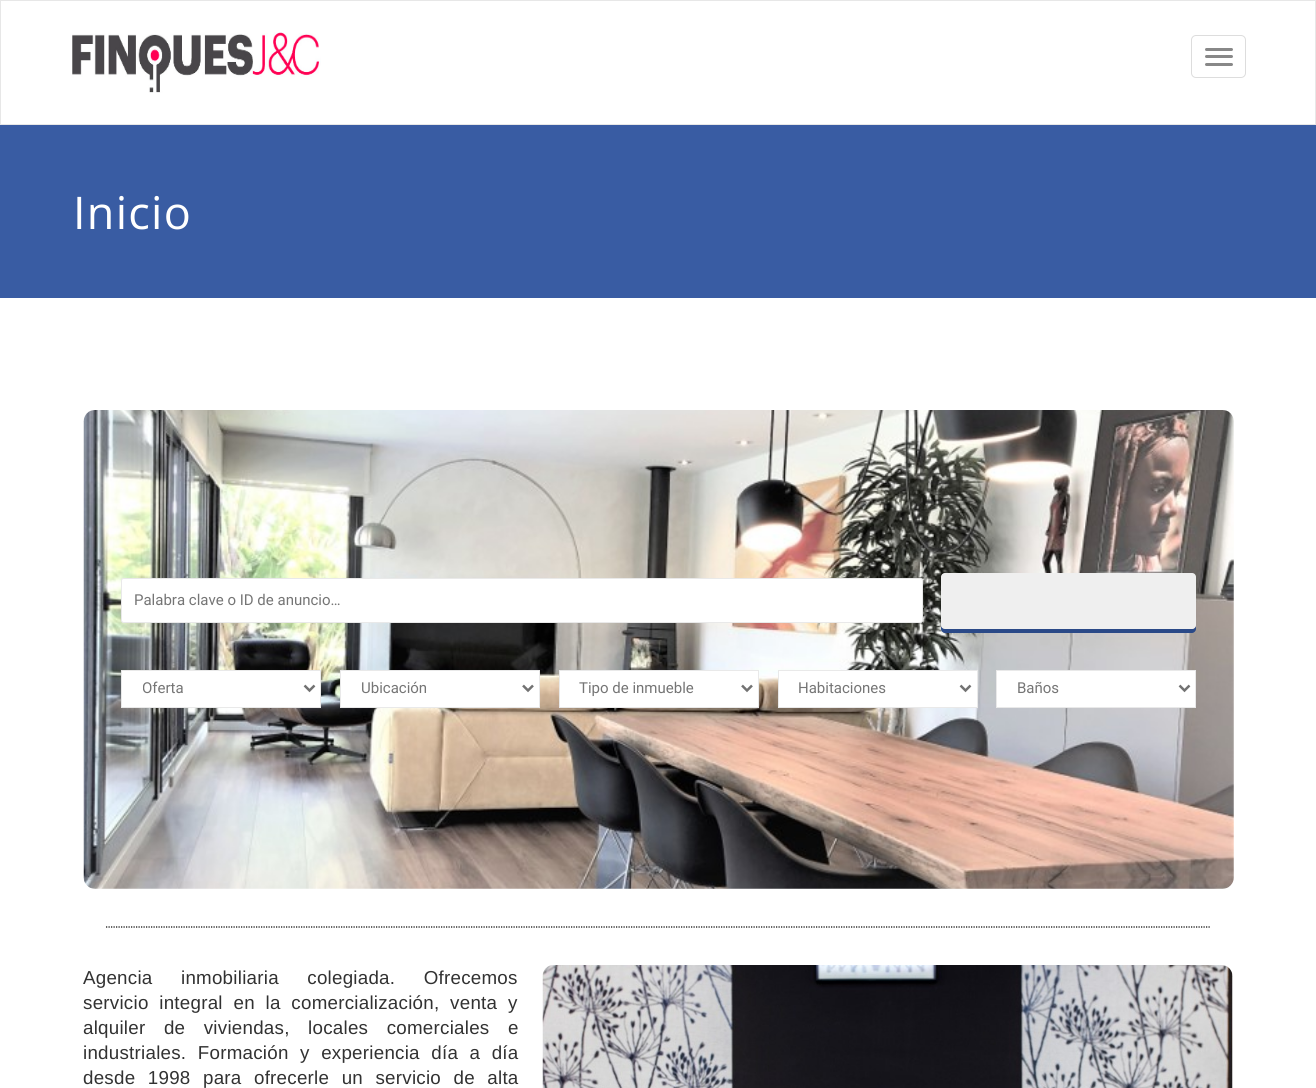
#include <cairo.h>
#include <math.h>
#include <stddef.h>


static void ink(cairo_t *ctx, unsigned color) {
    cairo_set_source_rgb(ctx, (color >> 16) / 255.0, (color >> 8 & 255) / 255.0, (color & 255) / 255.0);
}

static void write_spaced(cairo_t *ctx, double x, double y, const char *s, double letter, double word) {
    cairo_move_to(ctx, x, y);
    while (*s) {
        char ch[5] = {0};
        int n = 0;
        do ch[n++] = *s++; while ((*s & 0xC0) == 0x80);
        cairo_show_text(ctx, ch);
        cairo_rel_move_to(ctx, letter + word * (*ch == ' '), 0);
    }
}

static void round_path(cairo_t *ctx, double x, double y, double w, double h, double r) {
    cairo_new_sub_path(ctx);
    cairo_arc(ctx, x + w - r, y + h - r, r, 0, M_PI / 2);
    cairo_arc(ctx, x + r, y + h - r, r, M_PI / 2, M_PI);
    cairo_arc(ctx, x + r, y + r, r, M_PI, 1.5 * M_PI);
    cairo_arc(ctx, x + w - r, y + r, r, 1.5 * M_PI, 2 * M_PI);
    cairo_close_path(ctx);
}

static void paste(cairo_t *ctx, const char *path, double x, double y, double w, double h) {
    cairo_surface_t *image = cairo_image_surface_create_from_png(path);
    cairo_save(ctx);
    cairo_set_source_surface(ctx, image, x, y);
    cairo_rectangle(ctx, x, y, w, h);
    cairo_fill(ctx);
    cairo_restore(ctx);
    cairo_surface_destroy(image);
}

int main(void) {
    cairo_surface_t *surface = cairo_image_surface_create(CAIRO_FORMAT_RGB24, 1316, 1088);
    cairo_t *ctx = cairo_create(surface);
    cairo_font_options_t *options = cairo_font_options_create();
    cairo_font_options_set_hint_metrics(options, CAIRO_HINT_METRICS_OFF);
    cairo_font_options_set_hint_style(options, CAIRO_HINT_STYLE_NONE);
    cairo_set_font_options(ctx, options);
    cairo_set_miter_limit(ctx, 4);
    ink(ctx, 0xFFFFFF);
    cairo_paint(ctx);
    cairo_rectangle(ctx, 0.5, 0.5, 1315, 124);
    ink(ctx, 0xE7E7E7);
    cairo_set_line_width(ctx, 1);
    cairo_stroke(ctx);
    paste(ctx, "media/1.png", 72, 32, 249, 61);
    round_path(ctx, 1191.5, 35.5, 54, 42, 4.5);
    ink(ctx, 0xDDDDDD);
    cairo_stroke(ctx);
    ink(ctx, 0x888888);
    round_path(ctx, 1205, 48, 28, 3, 1.5);
    cairo_fill(ctx);
    round_path(ctx, 1205, 55, 28, 3, 1.5);
    cairo_fill(ctx);
    round_path(ctx, 1205, 63, 28, 3, 1.5);
    cairo_fill(ctx);
    ink(ctx, 0x395CA3);
    cairo_rectangle(ctx, 0, 125, 1316, 173);
    cairo_fill(ctx);
    cairo_select_font_face(ctx, "Open Sans", CAIRO_FONT_SLANT_NORMAL, CAIRO_FONT_WEIGHT_NORMAL);
    cairo_set_font_size(ctx, 45);
    ink(ctx, 0xFFFFFF);
    write_spaced(ctx, 73, 229, "Inicio", 1.25, 0);
    paste(ctx, "media/2.png", 83, 410, 1151, 479);
    round_path(ctx, 121.5, 578.5, 801, 44, 2);
    cairo_fill_preserve(ctx);
    ink(ctx, 0xE9E9E9);
    cairo_stroke(ctx);
    cairo_select_font_face(ctx, "Roboto", CAIRO_FONT_SLANT_NORMAL, CAIRO_FONT_WEIGHT_NORMAL);
    cairo_set_font_size(ctx, 15);
    ink(ctx, 0x757575);
    cairo_move_to(ctx, 134, 605);
    cairo_show_text(ctx, "Palabra clave o ID de anuncio…");
    ink(ctx, 0x2A4987);
    cairo_new_path(ctx);
    cairo_move_to(ctx, 941, 579);
    cairo_line_to(ctx, 941, 629);
    cairo_curve_to(ctx, 941, 631, 943, 633, 945, 633);
    cairo_line_to(ctx, 1192, 633);
    cairo_curve_to(ctx, 1194, 633, 1196, 631, 1196, 629);
    cairo_line_to(ctx, 1196, 626);
    cairo_curve_to(ctx, 1195, 628, 1194, 629, 1192, 629);
    cairo_line_to(ctx, 945, 629);
    cairo_curve_to(ctx, 943, 629, 941, 627, 941, 625);
    cairo_close_path(ctx);
    cairo_fill(ctx);
    ink(ctx, 0xEFEFEF);
    round_path(ctx, 941, 573, 255, 56, 4);
    cairo_fill(ctx);
    ink(ctx, 0xFFFFFF);
    cairo_rectangle(ctx, 121.5, 670.5, 199, 37);
    cairo_fill_preserve(ctx);
    ink(ctx, 0xE9E9E9);
    cairo_stroke(ctx);
    cairo_new_path(ctx);
    cairo_move_to(ctx, 304.5, 685.5);
    cairo_line_to(ctx, 309.5, 690.5);
    cairo_line_to(ctx, 314.5, 685.5);
    ink(ctx, 0x727272);
    cairo_set_line_width(ctx, 2.5);
    cairo_stroke(ctx);
    cairo_save(ctx);
    cairo_rectangle(ctx, 143, 679, 142, 20);
    cairo_clip(ctx);
    ink(ctx, 0x757575);
    cairo_move_to(ctx, 142, 693);
    cairo_show_text(ctx, "Oferta");
    cairo_restore(ctx);
    ink(ctx, 0xFFFFFF);
    cairo_rectangle(ctx, 340.5, 670.5, 199, 37);
    cairo_fill_preserve(ctx);
    ink(ctx, 0xE9E9E9);
    cairo_set_line_width(ctx, 1);
    cairo_stroke(ctx);
    cairo_new_path(ctx);
    cairo_move_to(ctx, 523, 685.5);
    cairo_line_to(ctx, 528, 690.5);
    cairo_line_to(ctx, 533, 685.5);
    ink(ctx, 0x727272);
    cairo_set_line_width(ctx, 2.5);
    cairo_stroke(ctx);
    ink(ctx, 0x757575);
    cairo_move_to(ctx, 361, 693);
    cairo_show_text(ctx, "Ubicación");
    ink(ctx, 0xFFFFFF);
    cairo_rectangle(ctx, 559.5, 670.5, 199, 37);
    cairo_fill_preserve(ctx);
    ink(ctx, 0xE9E9E9);
    cairo_set_line_width(ctx, 1);
    cairo_stroke(ctx);
    cairo_new_path(ctx);
    cairo_move_to(ctx, 742, 685.5);
    cairo_line_to(ctx, 747, 690.5);
    cairo_line_to(ctx, 752, 685.5);
    ink(ctx, 0x727272);
    cairo_set_line_width(ctx, 2.5);
    cairo_stroke(ctx);
    ink(ctx, 0x757575);
    cairo_move_to(ctx, 579, 693);
    cairo_show_text(ctx, "Tipo de inmueble");
    ink(ctx, 0xFFFFFF);
    cairo_rectangle(ctx, 778.5, 670.5, 199, 37);
    cairo_fill_preserve(ctx);
    ink(ctx, 0xE9E9E9);
    cairo_set_line_width(ctx, 1);
    cairo_stroke(ctx);
    cairo_new_path(ctx);
    cairo_move_to(ctx, 960.5, 685.5);
    cairo_line_to(ctx, 965.5, 690.5);
    cairo_line_to(ctx, 970.5, 685.5);
    ink(ctx, 0x727272);
    cairo_set_line_width(ctx, 2.5);
    cairo_stroke(ctx);
    ink(ctx, 0x757575);
    cairo_move_to(ctx, 798, 693);
    cairo_show_text(ctx, "Habitaciones");
    ink(ctx, 0xFFFFFF);
    cairo_rectangle(ctx, 996.5, 670.5, 199, 37);
    cairo_fill_preserve(ctx);
    ink(ctx, 0xE9E9E9);
    cairo_set_line_width(ctx, 1);
    cairo_stroke(ctx);
    cairo_new_path(ctx);
    cairo_move_to(ctx, 1179.5, 685.5);
    cairo_line_to(ctx, 1184.5, 690.5);
    cairo_line_to(ctx, 1189.5, 685.5);
    ink(ctx, 0x727272);
    cairo_set_line_width(ctx, 2.5);
    cairo_stroke(ctx);
    ink(ctx, 0x757575);
    cairo_move_to(ctx, 1017, 693);
    cairo_show_text(ctx, "Baños");
    cairo_new_path(ctx);
    cairo_move_to(ctx, 106, 927);
    cairo_line_to(ctx, 1210, 927);
    ink(ctx, 0x000000);
    cairo_set_line_width(ctx, 1.2);
    cairo_set_dash(ctx, (double[]){1.25, 1.25}, 2, 0);
    cairo_stroke(ctx);
    cairo_select_font_face(ctx, "Liberation Sans", CAIRO_FONT_SLANT_NORMAL, CAIRO_FONT_WEIGHT_NORMAL);
    cairo_set_font_size(ctx, 18.75);
    ink(ctx, 0x323232);
    write_spaced(ctx, 83, 984, "Agencia inmobiliaria colegiada. Ofrecemos", 0.25, 23);
    write_spaced(ctx, 83, 1009, "servicio integral en la comercialización, venta y", 0.25, 5.25);
    write_spaced(ctx, 83, 1034, "alquiler de viviendas, locales comerciales e", 0.25, 13);
    write_spaced(ctx, 83, 1059, "industriales. Formación y experiencia día a día", 0.25, 6);
    write_spaced(ctx, 83, 1084, "desde 1998 para ofrecerle un servicio de alta", 0.25, 7);
    paste(ctx, "media/3.png", 542, 965, 691, 123);
    cairo_surface_write_to_png(surface, "image.png");
    cairo_font_options_destroy(options);
    cairo_destroy(ctx);
    cairo_surface_destroy(surface);
    return 0;
}
